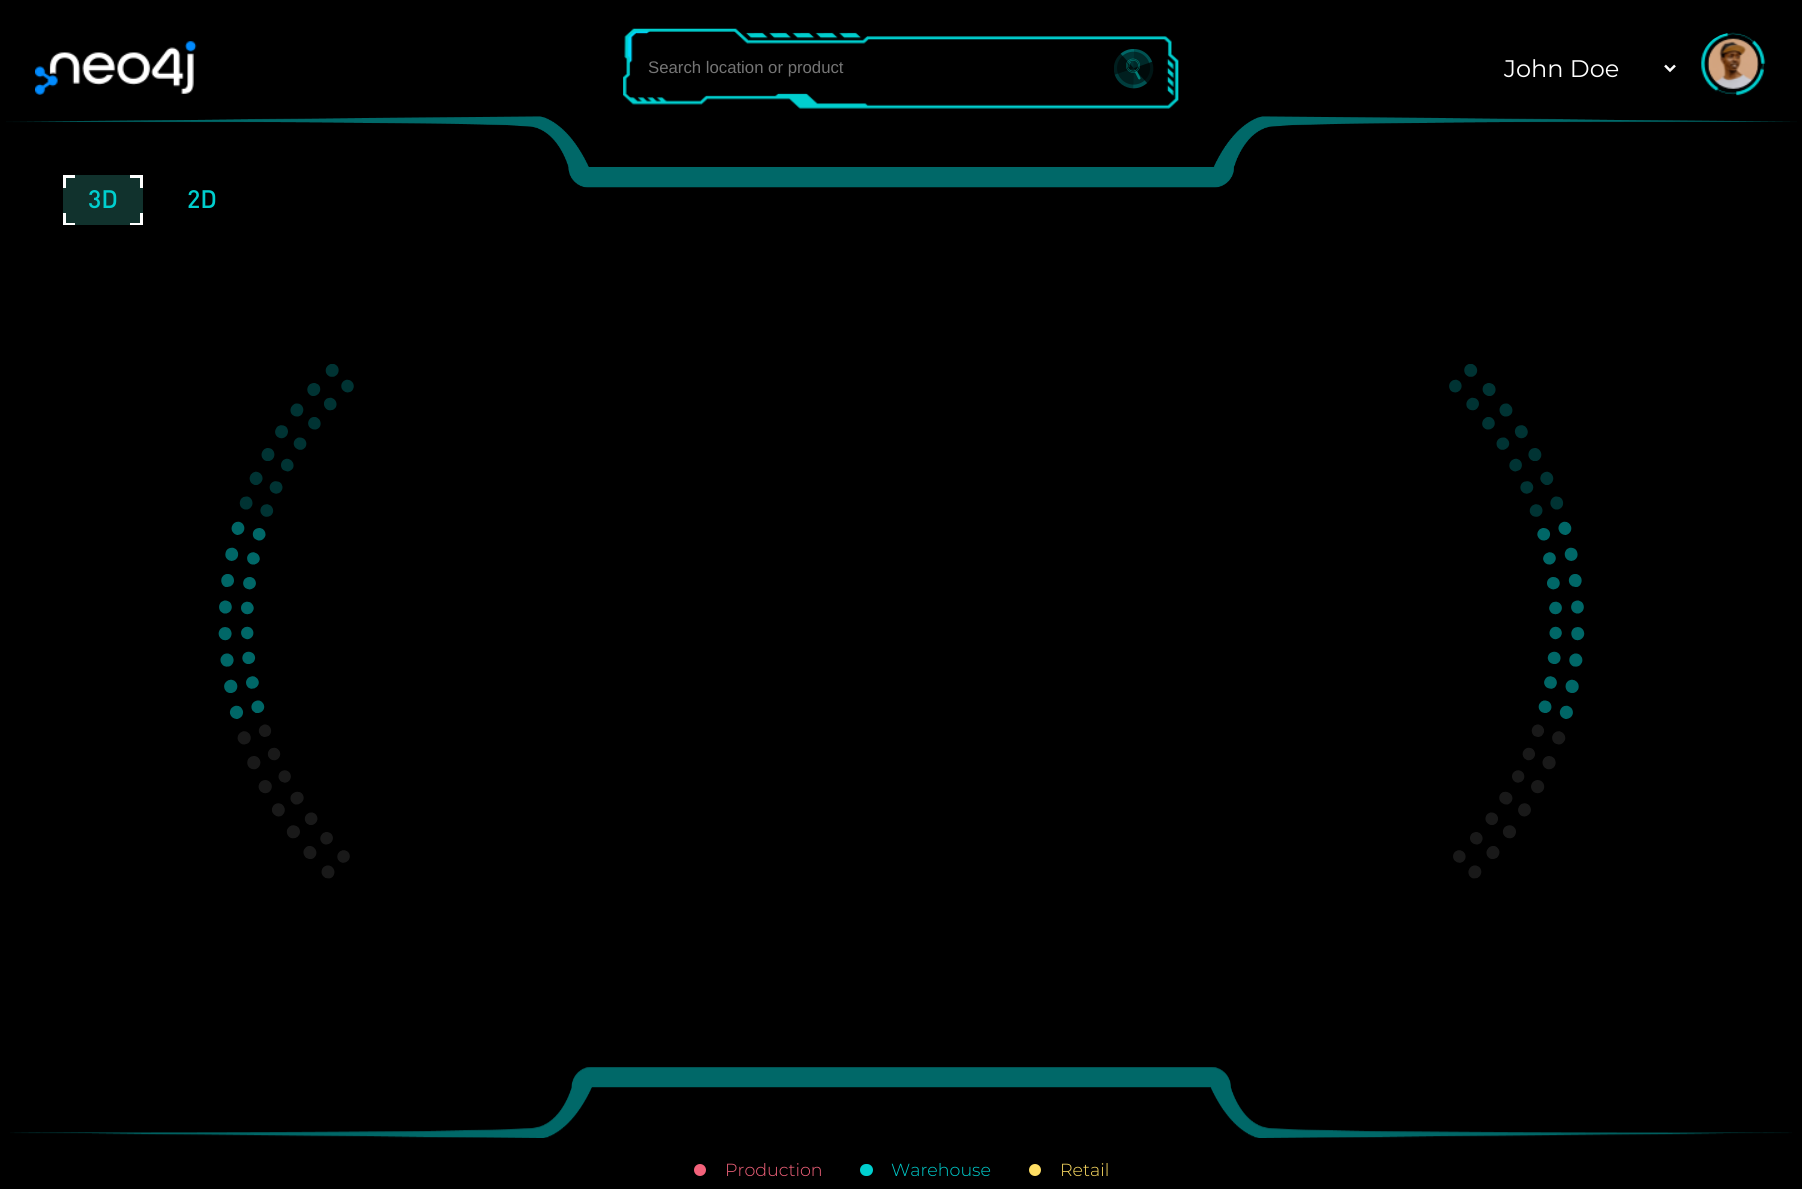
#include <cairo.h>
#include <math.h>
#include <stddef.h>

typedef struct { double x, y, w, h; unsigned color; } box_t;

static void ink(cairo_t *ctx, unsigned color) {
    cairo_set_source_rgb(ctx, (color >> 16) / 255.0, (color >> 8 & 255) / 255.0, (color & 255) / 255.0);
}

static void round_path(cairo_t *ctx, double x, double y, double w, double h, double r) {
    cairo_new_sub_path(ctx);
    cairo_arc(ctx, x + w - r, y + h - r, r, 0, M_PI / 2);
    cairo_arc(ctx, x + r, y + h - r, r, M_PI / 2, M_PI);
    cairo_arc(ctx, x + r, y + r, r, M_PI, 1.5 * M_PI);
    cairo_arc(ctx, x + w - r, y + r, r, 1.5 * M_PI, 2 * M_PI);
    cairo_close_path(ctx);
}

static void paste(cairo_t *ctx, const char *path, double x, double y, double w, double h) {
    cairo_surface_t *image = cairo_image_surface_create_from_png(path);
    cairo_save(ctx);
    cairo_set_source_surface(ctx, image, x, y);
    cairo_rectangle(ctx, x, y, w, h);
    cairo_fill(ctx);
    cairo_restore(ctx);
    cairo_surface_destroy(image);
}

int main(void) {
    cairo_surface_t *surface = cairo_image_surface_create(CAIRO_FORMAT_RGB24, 1802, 1189);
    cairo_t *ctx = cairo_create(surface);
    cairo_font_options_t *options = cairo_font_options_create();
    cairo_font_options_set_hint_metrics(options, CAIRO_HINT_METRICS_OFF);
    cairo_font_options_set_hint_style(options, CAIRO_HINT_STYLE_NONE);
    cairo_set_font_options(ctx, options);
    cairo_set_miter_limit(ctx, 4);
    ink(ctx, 0x000000);
    cairo_paint(ctx);
    paste(ctx, "media/1.png", 35, 41, 162, 54);
    paste(ctx, "media/2.png", 623, 28, 556, 81);
    cairo_select_font_face(ctx, "Liberation Sans", CAIRO_FONT_SLANT_NORMAL, CAIRO_FONT_WEIGHT_NORMAL);
    cairo_set_font_size(ctx, 16.75);
    ink(ctx, 0x757575);
    cairo_move_to(ctx, 648, 73);
    cairo_show_text(ctx, "Search location or product");
    paste(ctx, "media/3.png", 1114, 49, 40, 40);
    cairo_new_path(ctx);
    cairo_move_to(ctx, 1665, 65.5);
    cairo_line_to(ctx, 1670, 70.5);
    cairo_line_to(ctx, 1675, 65.5);
    ink(ctx, 0xFFFFFF);
    cairo_set_line_width(ctx, 2.5);
    cairo_stroke(ctx);
    cairo_select_font_face(ctx, "Montserrat", CAIRO_FONT_SLANT_NORMAL, CAIRO_FONT_WEIGHT_NORMAL);
    cairo_set_font_size(ctx, 24);
    cairo_move_to(ctx, 1504, 77);
    cairo_show_text(ctx, "John Doe");
    paste(ctx, "media/4.png", 1701, 32, 65, 64);
    paste(ctx, "media/5.png", 6, 116, 1791, 72);
    {
        static const box_t items[] = {
            {63, 175, 80, 50, 0x11322D},
            {130, 223, 13, 2, 0xFFFFFF},
            {63, 223, 12, 2, 0xFFFFFF},
            {130, 175, 13, 3, 0xFFFFFF},
            {63, 175, 12, 3, 0xFFFFFF},
            {140, 213, 3, 12, 0xFFFFFF},
            {140, 175, 3, 13, 0xFFFFFF},
            {63, 213, 3, 12, 0xFFFFFF},
            {63, 175, 3, 13, 0xFFFFFF},
        };
        for (size_t i = 0; i < sizeof items / sizeof *items; i++) {
            ink(ctx, items[i].color);
            cairo_rectangle(ctx, items[i].x, items[i].y, items[i].w, items[i].h);
            cairo_fill(ctx);
        }
    }
    cairo_select_font_face(ctx, "DIN Medium", CAIRO_FONT_SLANT_NORMAL, CAIRO_FONT_WEIGHT_NORMAL);
    cairo_set_font_size(ctx, 25);
    ink(ctx, 0x00CFCF);
    cairo_move_to(ctx, 88, 208);
    cairo_show_text(ctx, "3D");
    cairo_move_to(ctx, 187, 208);
    cairo_show_text(ctx, "2D");
    paste(ctx, "media/6.png", 218, 364, 136, 515);
    paste(ctx, "media/7.png", 1449, 364, 136, 515);
    paste(ctx, "media/8.png", 10, 1067, 1782, 71);
    ink(ctx, 0xF3627B);
    cairo_arc(ctx, 700, 1170, 6, 0, 2 * M_PI);
    cairo_fill(ctx);
    cairo_select_font_face(ctx, "Montserrat Light", CAIRO_FONT_SLANT_NORMAL, CAIRO_FONT_WEIGHT_NORMAL);
    cairo_set_font_size(ctx, 17.5);
    cairo_move_to(ctx, 725, 1176);
    cairo_show_text(ctx, "Production");
    ink(ctx, 0x00CFCF);
    round_path(ctx, 860, 1164, 13, 12, 6);
    cairo_fill(ctx);
    cairo_move_to(ctx, 891, 1176);
    cairo_show_text(ctx, "Warehouse");
    ink(ctx, 0xFFDE63);
    cairo_new_path(ctx);
    cairo_arc(ctx, 1035, 1170, 6, 0, 2 * M_PI);
    cairo_fill(ctx);
    cairo_move_to(ctx, 1060, 1176);
    cairo_show_text(ctx, "Retail");
    cairo_surface_write_to_png(surface, "image.png");
    cairo_font_options_destroy(options);
    cairo_destroy(ctx);
    cairo_surface_destroy(surface);
    return 0;
}
